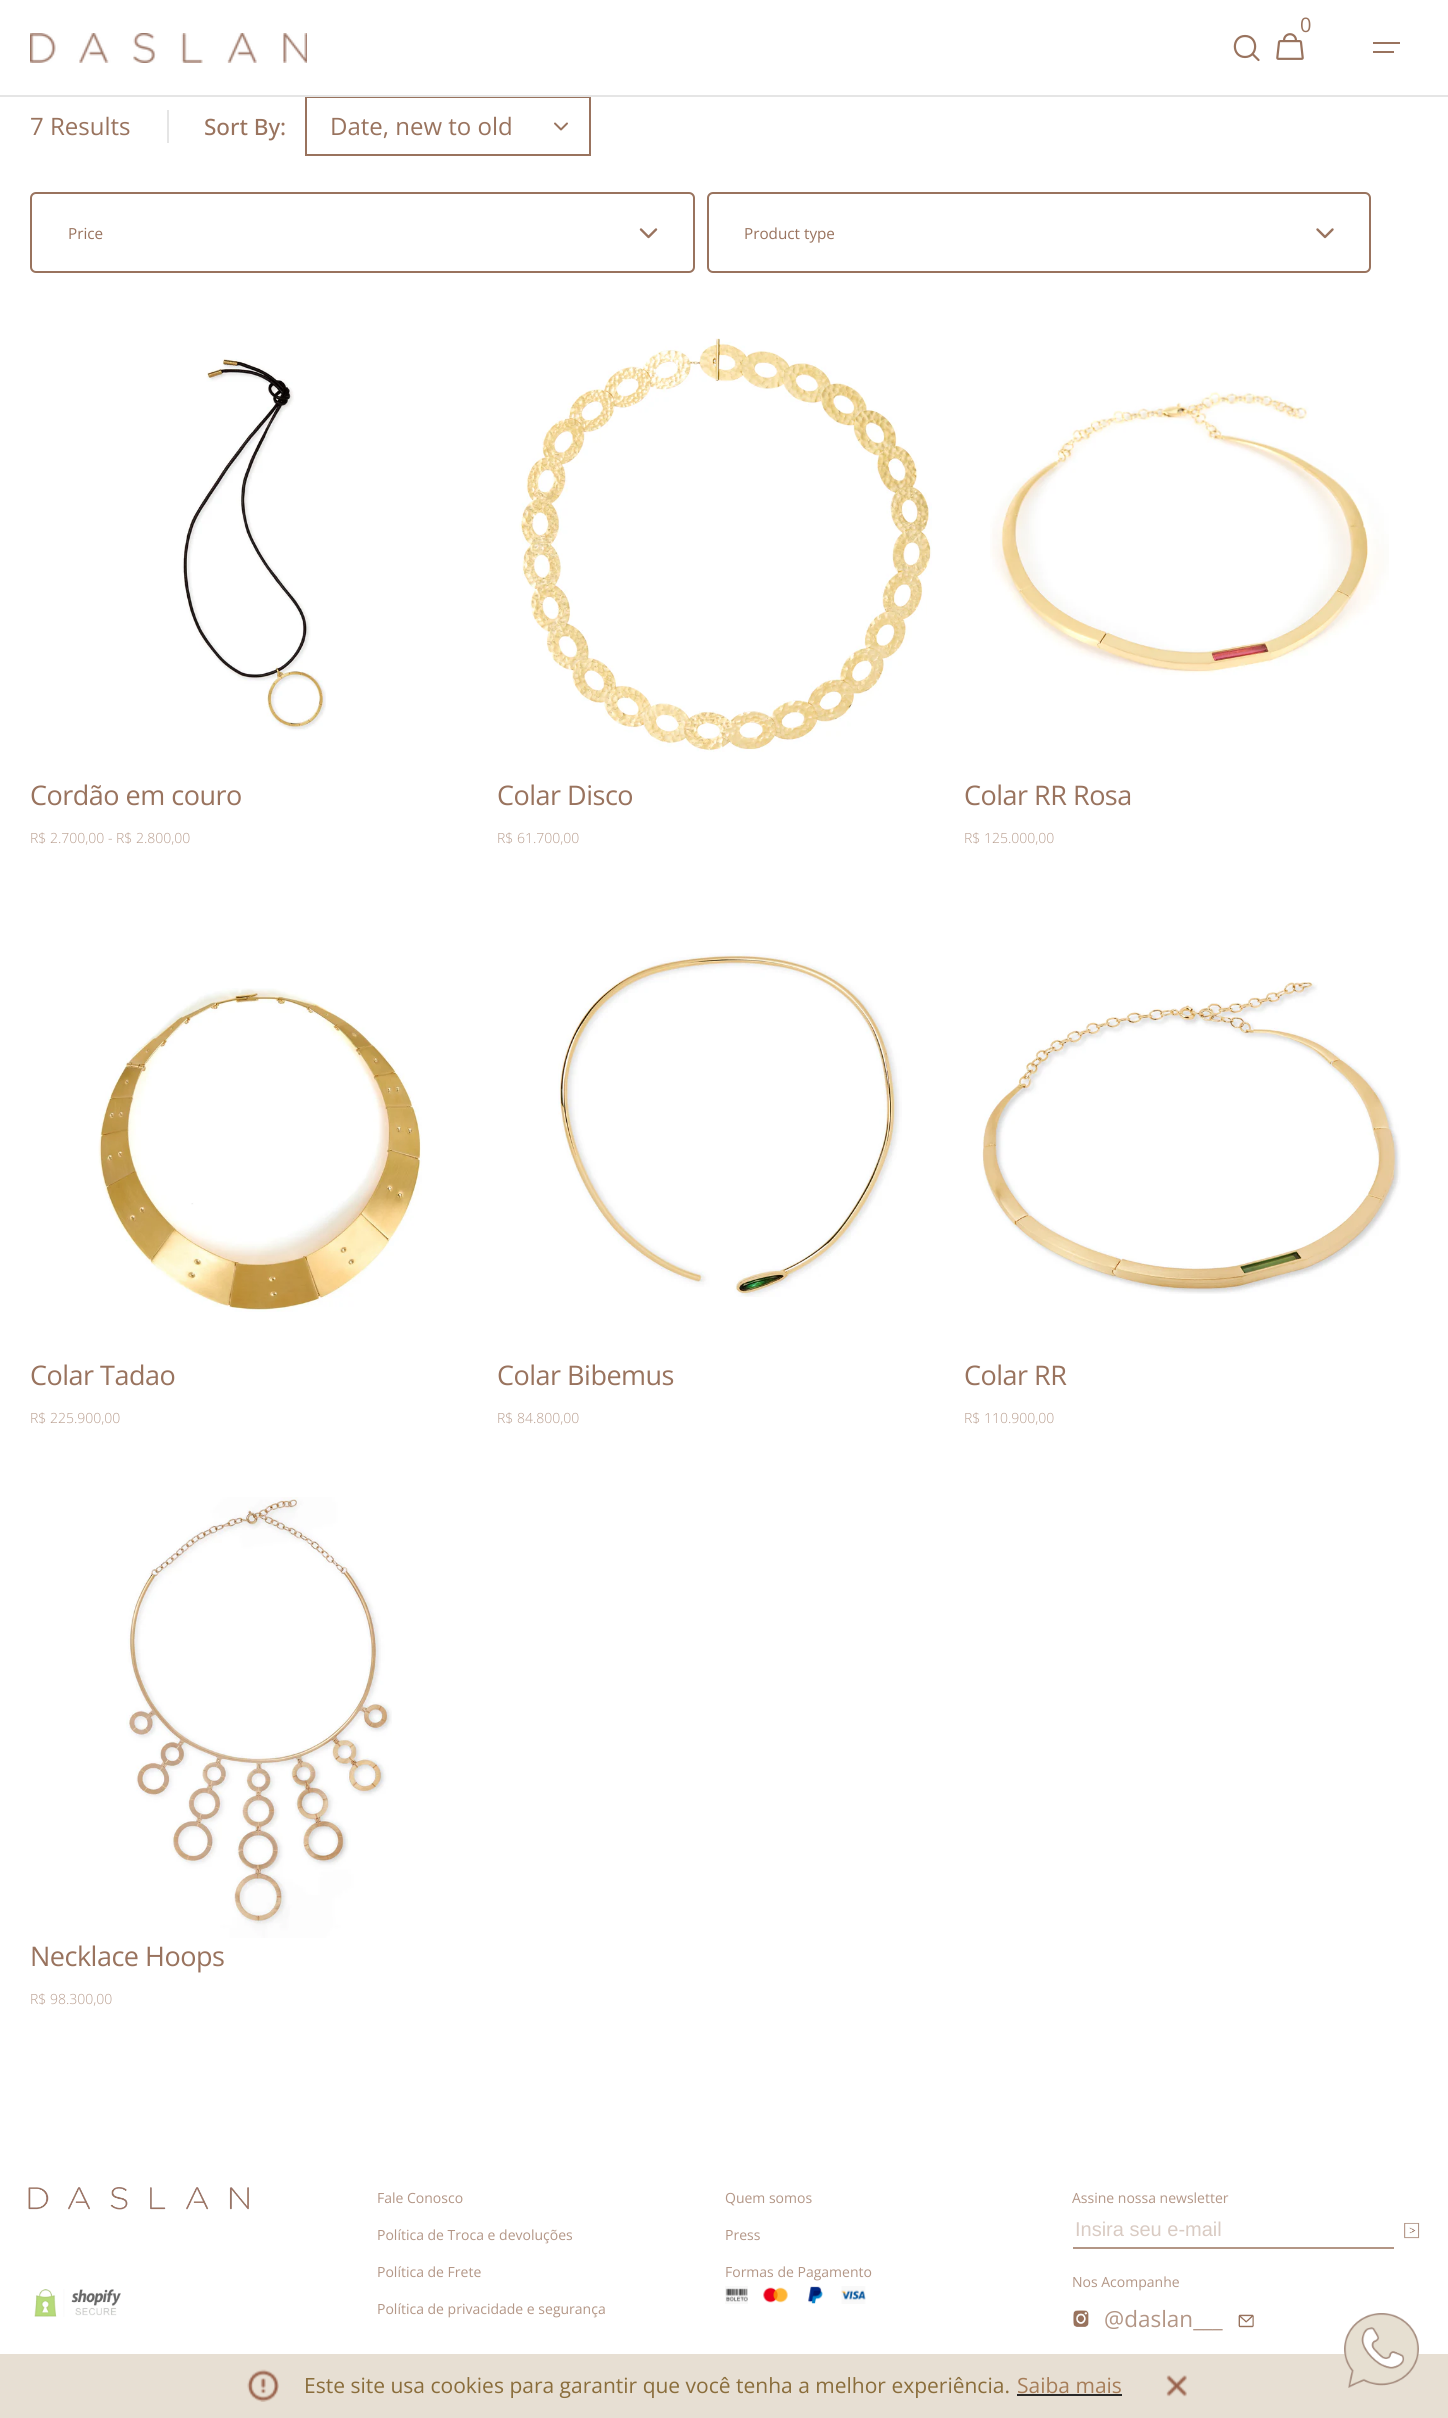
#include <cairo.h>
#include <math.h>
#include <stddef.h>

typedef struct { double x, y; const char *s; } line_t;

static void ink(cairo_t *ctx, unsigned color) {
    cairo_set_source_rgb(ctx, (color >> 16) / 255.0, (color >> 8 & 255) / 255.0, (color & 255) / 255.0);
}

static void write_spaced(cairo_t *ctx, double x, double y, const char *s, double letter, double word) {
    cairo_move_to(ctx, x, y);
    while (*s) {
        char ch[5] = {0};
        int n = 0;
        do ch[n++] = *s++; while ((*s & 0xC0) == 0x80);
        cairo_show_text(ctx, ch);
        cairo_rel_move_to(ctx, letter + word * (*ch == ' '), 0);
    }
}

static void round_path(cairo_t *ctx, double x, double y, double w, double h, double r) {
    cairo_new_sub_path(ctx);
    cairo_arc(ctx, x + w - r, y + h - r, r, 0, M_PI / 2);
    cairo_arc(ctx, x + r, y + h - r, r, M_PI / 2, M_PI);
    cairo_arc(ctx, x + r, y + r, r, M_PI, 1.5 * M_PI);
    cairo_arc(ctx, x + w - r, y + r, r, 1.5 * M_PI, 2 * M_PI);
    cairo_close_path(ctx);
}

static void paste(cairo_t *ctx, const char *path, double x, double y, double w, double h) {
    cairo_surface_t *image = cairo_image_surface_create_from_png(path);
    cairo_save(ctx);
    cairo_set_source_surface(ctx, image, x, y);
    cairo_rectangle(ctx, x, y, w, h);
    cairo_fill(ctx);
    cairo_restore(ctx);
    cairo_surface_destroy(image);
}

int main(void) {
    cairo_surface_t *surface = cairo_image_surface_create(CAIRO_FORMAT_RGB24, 1448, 2418);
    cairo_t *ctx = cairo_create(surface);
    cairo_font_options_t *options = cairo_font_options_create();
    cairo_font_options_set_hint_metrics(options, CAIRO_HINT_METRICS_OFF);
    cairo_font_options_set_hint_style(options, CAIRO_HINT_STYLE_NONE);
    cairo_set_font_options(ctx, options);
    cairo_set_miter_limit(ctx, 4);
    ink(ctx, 0xFFFFFF);
    cairo_paint(ctx);
    cairo_select_font_face(ctx, "Open Sans", CAIRO_FONT_SLANT_NORMAL, CAIRO_FONT_WEIGHT_NORMAL);
    cairo_set_font_size(ctx, 20);
    ink(ctx, 0x99735E);
    cairo_move_to(ctx, 1300, 32);
    cairo_show_text(ctx, "0");
    paste(ctx, "media/1.png", 1276, 33, 28, 27);
    cairo_new_path(ctx);
    cairo_move_to(ctx, 1245, 57);
    cairo_curve_to(ctx, 1258.5, 57, 1258.5, 36, 1245, 36);
    cairo_curve_to(ctx, 1231.5, 36, 1231.5, 57, 1245, 57);
    cairo_close_path(ctx);
    cairo_move_to(ctx, 1252.5, 54);
    cairo_line_to(ctx, 1258.5, 60);
    cairo_set_line_width(ctx, 2.2);
    cairo_set_line_cap(ctx, CAIRO_LINE_CAP_ROUND);
    cairo_set_line_join(ctx, CAIRO_LINE_JOIN_ROUND);
    cairo_stroke(ctx);
    paste(ctx, "media/2.png", 30, 33, 277, 30);
    cairo_rectangle(ctx, 1373, 42, 27, 2);
    cairo_fill(ctx);
    cairo_rectangle(ctx, 1373, 51, 21, 2);
    cairo_fill(ctx);
    cairo_rectangle(ctx, 306, 97, 284, 58);
    cairo_set_line_width(ctx, 2);
    cairo_set_line_cap(ctx, CAIRO_LINE_CAP_BUTT);
    cairo_set_line_join(ctx, CAIRO_LINE_JOIN_MITER);
    cairo_stroke(ctx);
    ink(ctx, 0xE5E5E5);
    cairo_rectangle(ctx, 0, 95, 1448, 2);
    cairo_fill(ctx);
    cairo_set_font_size(ctx, 24);
    ink(ctx, 0x99735E);
    cairo_move_to(ctx, 30, 135);
    cairo_show_text(ctx, "7 Results");
    ink(ctx, 0xE5E5E5);
    cairo_rectangle(ctx, 167, 110, 2, 33);
    cairo_fill(ctx);
    cairo_select_font_face(ctx, "Open Sans Medium", CAIRO_FONT_SLANT_NORMAL, CAIRO_FONT_WEIGHT_NORMAL);
    cairo_set_font_size(ctx, 22.5);
    ink(ctx, 0x99735E);
    cairo_move_to(ctx, 204, 135);
    cairo_show_text(ctx, "Sort By:");
    cairo_select_font_face(ctx, "Open Sans", CAIRO_FONT_SLANT_NORMAL, CAIRO_FONT_WEIGHT_NORMAL);
    cairo_set_font_size(ctx, 24);
    cairo_move_to(ctx, 330, 135);
    cairo_show_text(ctx, "Date, new to old");
    cairo_new_path(ctx);
    cairo_move_to(ctx, 567, 123.5);
    cairo_line_to(ctx, 561, 129.5);
    cairo_line_to(ctx, 555, 123.5);
    cairo_set_line_cap(ctx, CAIRO_LINE_CAP_ROUND);
    cairo_set_line_join(ctx, CAIRO_LINE_JOIN_ROUND);
    cairo_stroke(ctx);
    round_path(ctx, 31, 193, 663, 79, 5);
    cairo_set_line_cap(ctx, CAIRO_LINE_CAP_BUTT);
    cairo_set_line_join(ctx, CAIRO_LINE_JOIN_MITER);
    cairo_stroke(ctx);
    cairo_set_font_size(ctx, 15.25);
    cairo_move_to(ctx, 68, 239);
    cairo_show_text(ctx, "Price");
    cairo_new_path(ctx);
    cairo_move_to(ctx, 656, 229.5);
    cairo_line_to(ctx, 648.5, 237);
    cairo_line_to(ctx, 641, 229.5);
    cairo_set_line_width(ctx, 2.4);
    cairo_set_line_cap(ctx, CAIRO_LINE_CAP_ROUND);
    cairo_set_line_join(ctx, CAIRO_LINE_JOIN_ROUND);
    cairo_stroke(ctx);
    round_path(ctx, 708, 193, 662, 79, 5);
    cairo_set_line_width(ctx, 2);
    cairo_set_line_cap(ctx, CAIRO_LINE_CAP_BUTT);
    cairo_set_line_join(ctx, CAIRO_LINE_JOIN_MITER);
    cairo_stroke(ctx);
    cairo_move_to(ctx, 744, 239);
    cairo_show_text(ctx, "Product type");
    cairo_new_path(ctx);
    cairo_move_to(ctx, 1332.5, 229.5);
    cairo_line_to(ctx, 1325, 237);
    cairo_line_to(ctx, 1317.5, 229.5);
    cairo_set_line_width(ctx, 2.4);
    cairo_set_line_cap(ctx, CAIRO_LINE_CAP_ROUND);
    cairo_set_line_join(ctx, CAIRO_LINE_JOIN_ROUND);
    cairo_stroke(ctx);
    paste(ctx, "media/3.png", 182, 358, 144, 373);
    cairo_set_font_size(ctx, 27);
    write_spaced(ctx, 30, 805, "Cordão em couro", -0.5, 0);
    cairo_select_font_face(ctx, "Open Sans Light", CAIRO_FONT_SLANT_NORMAL, CAIRO_FONT_WEIGHT_NORMAL);
    cairo_set_font_size(ctx, 14);
    ink(ctx, 0xB89D8E);
    cairo_move_to(ctx, 30, 843);
    cairo_show_text(ctx, "R$ 2.700,00 - R$ 2.800,00");
    paste(ctx, "media/4.png", 519, 338, 413, 414);
    cairo_select_font_face(ctx, "Open Sans", CAIRO_FONT_SLANT_NORMAL, CAIRO_FONT_WEIGHT_NORMAL);
    cairo_set_font_size(ctx, 27);
    ink(ctx, 0x99735E);
    write_spaced(ctx, 497, 805, "Colar Disco", -0.5, 0);
    cairo_select_font_face(ctx, "Open Sans Light", CAIRO_FONT_SLANT_NORMAL, CAIRO_FONT_WEIGHT_NORMAL);
    cairo_set_font_size(ctx, 14);
    ink(ctx, 0xB89D8E);
    cairo_move_to(ctx, 497, 843);
    cairo_show_text(ctx, "R$ 61.700,00");
    paste(ctx, "media/5.png", 990, 391, 399, 284);
    cairo_select_font_face(ctx, "Open Sans", CAIRO_FONT_SLANT_NORMAL, CAIRO_FONT_WEIGHT_NORMAL);
    cairo_set_font_size(ctx, 27);
    ink(ctx, 0x99735E);
    write_spaced(ctx, 964, 805, "Colar RR Rosa", -0.5, 0);
    cairo_select_font_face(ctx, "Open Sans Light", CAIRO_FONT_SLANT_NORMAL, CAIRO_FONT_WEIGHT_NORMAL);
    cairo_set_font_size(ctx, 14);
    ink(ctx, 0xB89D8E);
    cairo_move_to(ctx, 964, 843);
    cairo_show_text(ctx, "R$ 125.000,00");
    paste(ctx, "media/6.png", 98, 988, 324, 324);
    cairo_select_font_face(ctx, "Open Sans", CAIRO_FONT_SLANT_NORMAL, CAIRO_FONT_WEIGHT_NORMAL);
    cairo_set_font_size(ctx, 27);
    ink(ctx, 0x99735E);
    write_spaced(ctx, 30, 1385, "Colar Tadao", -0.5, 0);
    cairo_select_font_face(ctx, "Open Sans Light", CAIRO_FONT_SLANT_NORMAL, CAIRO_FONT_WEIGHT_NORMAL);
    cairo_set_font_size(ctx, 14);
    ink(ctx, 0xB89D8E);
    cairo_move_to(ctx, 30, 1423);
    cairo_show_text(ctx, "R$ 225.900,00");
    paste(ctx, "media/7.png", 558, 953, 344, 344);
    cairo_select_font_face(ctx, "Open Sans", CAIRO_FONT_SLANT_NORMAL, CAIRO_FONT_WEIGHT_NORMAL);
    cairo_set_font_size(ctx, 27);
    ink(ctx, 0x99735E);
    write_spaced(ctx, 497, 1385, "Colar Bibemus", -0.5, 0);
    cairo_select_font_face(ctx, "Open Sans Light", CAIRO_FONT_SLANT_NORMAL, CAIRO_FONT_WEIGHT_NORMAL);
    cairo_set_font_size(ctx, 14);
    ink(ctx, 0xB89D8E);
    cairo_move_to(ctx, 497, 1423);
    cairo_show_text(ctx, "R$ 84.800,00");
    paste(ctx, "media/8.png", 980, 982, 421, 312);
    cairo_select_font_face(ctx, "Open Sans", CAIRO_FONT_SLANT_NORMAL, CAIRO_FONT_WEIGHT_NORMAL);
    cairo_set_font_size(ctx, 27);
    ink(ctx, 0x99735E);
    write_spaced(ctx, 964, 1385, "Colar RR", -0.5, 0);
    cairo_select_font_face(ctx, "Open Sans Light", CAIRO_FONT_SLANT_NORMAL, CAIRO_FONT_WEIGHT_NORMAL);
    cairo_set_font_size(ctx, 14);
    ink(ctx, 0xB89D8E);
    cairo_move_to(ctx, 964, 1423);
    cairo_show_text(ctx, "R$ 110.900,00");
    paste(ctx, "media/9.png", 126, 1497, 266, 441);
    cairo_select_font_face(ctx, "Open Sans", CAIRO_FONT_SLANT_NORMAL, CAIRO_FONT_WEIGHT_NORMAL);
    cairo_set_font_size(ctx, 27);
    ink(ctx, 0x99735E);
    write_spaced(ctx, 30, 1966, "Necklace Hoops", -0.5, 0);
    cairo_select_font_face(ctx, "Open Sans Light", CAIRO_FONT_SLANT_NORMAL, CAIRO_FONT_WEIGHT_NORMAL);
    cairo_set_font_size(ctx, 14);
    ink(ctx, 0xB89D8E);
    cairo_move_to(ctx, 30, 2004);
    cairo_show_text(ctx, "R$ 98.300,00");
    paste(ctx, "media/10.png", 28, 2187, 221, 23);
    paste(ctx, "media/11.png", 34, 2289, 87, 28);
    cairo_select_font_face(ctx, "Open Sans", CAIRO_FONT_SLANT_NORMAL, CAIRO_FONT_WEIGHT_NORMAL);
    ink(ctx, 0xB39686);
    {
        static const line_t items[] = {
            {377, 2203, "Fale Conosco"},
            {377, 2240, "Política de Troca e devoluções"},
            {377, 2277, "Política de Frete"},
            {377, 2314, "Política de privacidade e segurança"},
            {725, 2203, "Quem somos"},
            {725, 2240, "Press"},
            {725, 2277, "Formas de Pagamento"},
        };
        for (size_t i = 0; i < sizeof items / sizeof *items; i++) {
            cairo_move_to(ctx, items[i].x, items[i].y);
            cairo_show_text(ctx, items[i].s);
        }
    }
    paste(ctx, "media/12.png", 725, 2286, 23, 18);
    paste(ctx, "media/13.png", 763, 2287, 25, 16);
    paste(ctx, "media/14.png", 808, 2286, 15, 18);
    paste(ctx, "media/15.png", 841, 2286, 25, 18);
    cairo_move_to(ctx, 1072, 2203);
    cairo_show_text(ctx, "Assine nossa newsletter");
    cairo_rectangle(ctx, 1073, 2247, 321, 2);
    cairo_fill(ctx);
    cairo_select_font_face(ctx, "Liberation Sans", CAIRO_FONT_SLANT_NORMAL, CAIRO_FONT_WEIGHT_NORMAL);
    cairo_set_font_size(ctx, 20);
    ink(ctx, 0xD9CBC3);
    cairo_move_to(ctx, 1075, 2236);
    cairo_show_text(ctx, "Insira seu e-mail");
    paste(ctx, "media/16.png", 1404, 2222, 16, 17);
    cairo_select_font_face(ctx, "Open Sans", CAIRO_FONT_SLANT_NORMAL, CAIRO_FONT_WEIGHT_NORMAL);
    cairo_set_font_size(ctx, 14);
    ink(ctx, 0xB39686);
    cairo_move_to(ctx, 1072, 2287);
    cairo_show_text(ctx, "Nos Acompanhe");
    paste(ctx, "media/17.png", 1073, 2310, 16, 17);
    cairo_set_font_size(ctx, 22.5);
    cairo_move_to(ctx, 1104, 2327);
    cairo_show_text(ctx, "@daslan___");
    paste(ctx, "media/18.png", 1238, 2314, 16, 14);
    ink(ctx, 0xE7DFD3);
    cairo_rectangle(ctx, 0, 2354, 1448, 64);
    cairo_fill(ctx);
    paste(ctx, "media/19.png", 247, 2369, 32, 33);
    cairo_set_font_size(ctx, 21);
    ink(ctx, 0x8A6D3B);
    cairo_move_to(ctx, 304, 2393);
    cairo_show_text(ctx, "Este site usa cookies para garantir que você tenha a melhor experiência.");
    ink(ctx, 0xA67D58);
    cairo_move_to(ctx, 1017, 2393);
    cairo_show_text(ctx, "Saiba mais");
    ink(ctx, 0x282828);
    cairo_rectangle(ctx, 1017, 2394, 105, 2);
    cairo_fill(ctx);
    paste(ctx, "media/20.png", 1166, 2375, 21, 22);
    paste(ctx, "media/21.png", 1344, 2313, 75, 75);
    cairo_surface_write_to_png(surface, "image.png");
    cairo_font_options_destroy(options);
    cairo_destroy(ctx);
    cairo_surface_destroy(surface);
    return 0;
}
